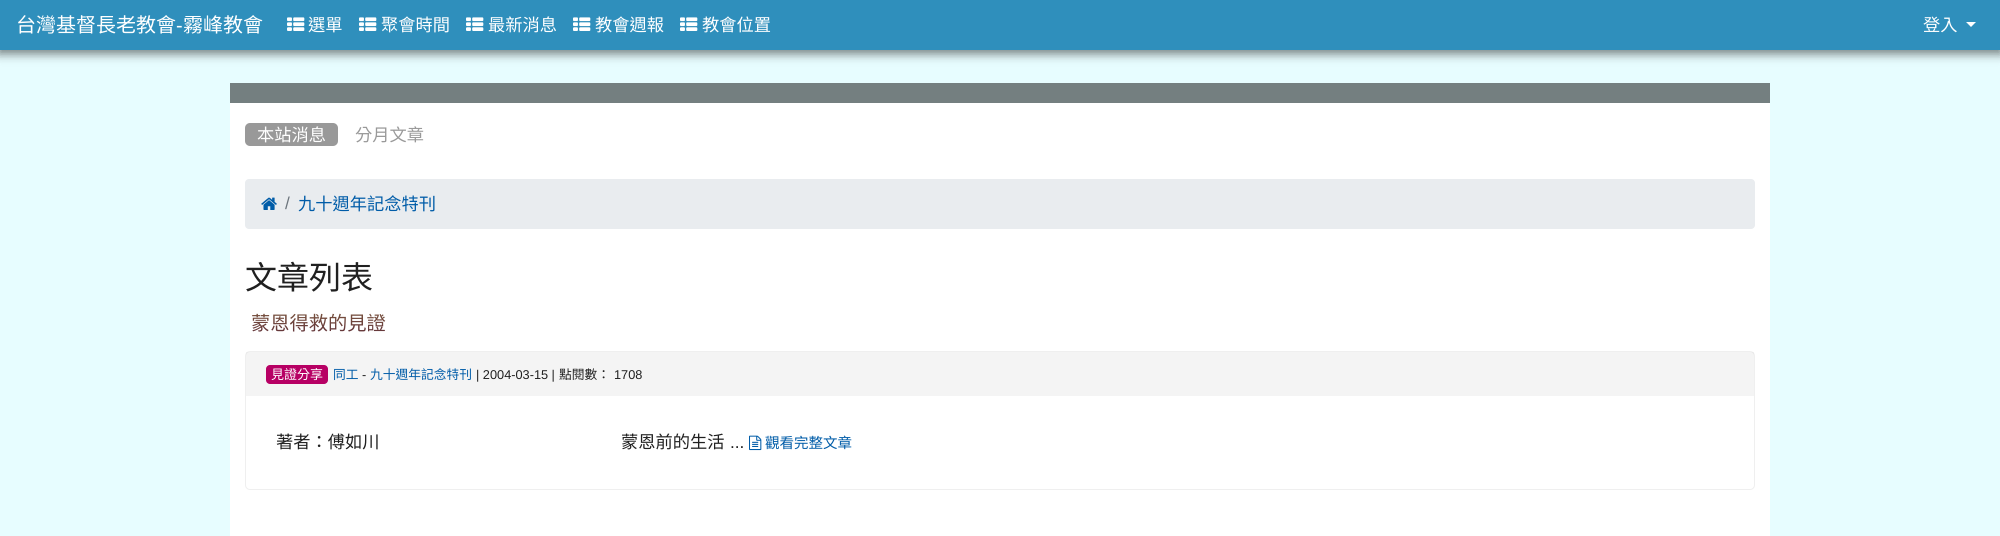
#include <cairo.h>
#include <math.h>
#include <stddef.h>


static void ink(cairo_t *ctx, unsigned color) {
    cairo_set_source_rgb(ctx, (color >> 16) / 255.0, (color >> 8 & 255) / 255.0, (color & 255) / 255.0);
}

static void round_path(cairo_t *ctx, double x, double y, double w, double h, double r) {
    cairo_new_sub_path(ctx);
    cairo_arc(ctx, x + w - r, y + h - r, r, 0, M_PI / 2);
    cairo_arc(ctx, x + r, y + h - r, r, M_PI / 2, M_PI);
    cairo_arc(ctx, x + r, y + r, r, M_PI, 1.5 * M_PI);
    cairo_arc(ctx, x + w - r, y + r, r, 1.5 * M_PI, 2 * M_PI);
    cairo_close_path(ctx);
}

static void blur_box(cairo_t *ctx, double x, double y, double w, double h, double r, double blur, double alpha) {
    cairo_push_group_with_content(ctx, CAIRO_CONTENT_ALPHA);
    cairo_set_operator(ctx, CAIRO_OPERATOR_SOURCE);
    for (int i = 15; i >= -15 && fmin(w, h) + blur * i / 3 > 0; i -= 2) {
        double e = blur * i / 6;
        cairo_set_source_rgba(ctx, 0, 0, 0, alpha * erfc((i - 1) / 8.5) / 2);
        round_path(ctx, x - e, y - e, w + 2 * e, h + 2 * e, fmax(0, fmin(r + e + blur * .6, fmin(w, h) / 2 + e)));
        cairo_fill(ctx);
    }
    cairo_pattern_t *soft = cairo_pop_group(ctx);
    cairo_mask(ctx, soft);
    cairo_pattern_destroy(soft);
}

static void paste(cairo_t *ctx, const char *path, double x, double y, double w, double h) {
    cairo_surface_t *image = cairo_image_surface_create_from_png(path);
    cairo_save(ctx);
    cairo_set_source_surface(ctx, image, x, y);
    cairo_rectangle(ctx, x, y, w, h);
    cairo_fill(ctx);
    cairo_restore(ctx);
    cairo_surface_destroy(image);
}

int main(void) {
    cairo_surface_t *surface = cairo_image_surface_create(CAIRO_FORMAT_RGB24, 2000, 536);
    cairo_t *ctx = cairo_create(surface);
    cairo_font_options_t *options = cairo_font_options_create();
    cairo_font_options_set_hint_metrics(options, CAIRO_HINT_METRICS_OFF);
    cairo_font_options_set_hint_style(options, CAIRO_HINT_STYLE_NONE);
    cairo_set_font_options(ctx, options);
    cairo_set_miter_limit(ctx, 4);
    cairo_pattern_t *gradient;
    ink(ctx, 0xE7FDFF);
    cairo_paint(ctx);
    ink(ctx, 0x000000);
    blur_box(ctx, -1, 2, 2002, 52, 0, 5, 0.5);
    ink(ctx, 0x2F8FBC);
    cairo_rectangle(ctx, 0, 0, 2000, 50);
    cairo_fill(ctx);
    cairo_select_font_face(ctx, "Noto Sans CJK TC", CAIRO_FONT_SLANT_NORMAL, CAIRO_FONT_WEIGHT_NORMAL);
    cairo_set_font_size(ctx, 20);
    ink(ctx, 0xFFFFFF);
    cairo_move_to(ctx, 16, 32);
    cairo_show_text(ctx, "台灣基督長老教會");
    cairo_select_font_face(ctx, "Liberation Sans", CAIRO_FONT_SLANT_NORMAL, CAIRO_FONT_WEIGHT_NORMAL);
    cairo_move_to(ctx, 176, 32);
    cairo_show_text(ctx, "-");
    cairo_select_font_face(ctx, "Noto Sans CJK TC", CAIRO_FONT_SLANT_NORMAL, CAIRO_FONT_WEIGHT_NORMAL);
    cairo_move_to(ctx, 183, 32);
    cairo_show_text(ctx, "霧峰教會");
    paste(ctx, "media/1.png", 287, 17, 18, 14);
    cairo_set_font_size(ctx, 17.25);
    cairo_move_to(ctx, 308, 31);
    cairo_show_text(ctx, "選單");
    paste(ctx, "media/1.png", 359, 17, 18, 14);
    cairo_move_to(ctx, 381, 31);
    cairo_show_text(ctx, "聚會時間");
    paste(ctx, "media/1.png", 466, 17, 18, 14);
    cairo_move_to(ctx, 488, 31);
    cairo_show_text(ctx, "最新消息");
    paste(ctx, "media/1.png", 573, 17, 18, 14);
    cairo_move_to(ctx, 595, 31);
    cairo_show_text(ctx, "教會週報");
    paste(ctx, "media/1.png", 680, 17, 18, 14);
    cairo_move_to(ctx, 702, 31);
    cairo_show_text(ctx, "教會位置");
    cairo_move_to(ctx, 1923, 31);
    cairo_show_text(ctx, "登入");
    cairo_new_path(ctx);
    cairo_move_to(ctx, 1966, 22);
    cairo_line_to(ctx, 1976, 22);
    cairo_line_to(ctx, 1971, 27);
    cairo_close_path(ctx);
    cairo_fill(ctx);
    ink(ctx, 0x747F80);
    cairo_rectangle(ctx, 230, 83, 1540, 20);
    cairo_fill(ctx);
    ink(ctx, 0xFFFFFF);
    cairo_rectangle(ctx, 230, 103, 1540, 433);
    cairo_fill(ctx);
    ink(ctx, 0x999999);
    round_path(ctx, 245, 123, 93, 23, 5);
    cairo_fill(ctx);
    ink(ctx, 0xFFFFFF);
    cairo_move_to(ctx, 257, 141);
    cairo_show_text(ctx, "本站消息");
    ink(ctx, 0x999999);
    cairo_move_to(ctx, 355, 141);
    cairo_show_text(ctx, "分月文章");
    ink(ctx, 0xE9ECEF);
    round_path(ctx, 245, 179, 1510, 50, 4);
    cairo_fill(ctx);
    paste(ctx, "media/2.png", 261, 197, 16, 13);
    cairo_select_font_face(ctx, "Liberation Sans", CAIRO_FONT_SLANT_NORMAL, CAIRO_FONT_WEIGHT_NORMAL);
    ink(ctx, 0x6C757D);
    cairo_move_to(ctx, 285, 209);
    cairo_show_text(ctx, "/");
    cairo_select_font_face(ctx, "Noto Sans CJK TC", CAIRO_FONT_SLANT_NORMAL, CAIRO_FONT_WEIGHT_NORMAL);
    ink(ctx, 0x005CA8);
    cairo_move_to(ctx, 298, 210);
    cairo_show_text(ctx, "九十週年記念特刊");
    cairo_set_font_size(ctx, 32);
    ink(ctx, 0x202020);
    cairo_move_to(ctx, 245, 289);
    cairo_show_text(ctx, "文章列表");
    cairo_set_font_size(ctx, 19.25);
    gradient = cairo_pattern_create_linear(1000, 306, 1000, 341);
    cairo_pattern_add_color_stop_rgba(gradient, 0, 0.494, 0.361, 0.251, 1);
    cairo_pattern_add_color_stop_rgba(gradient, 1, 0.361, 0.161, 0.22, 1);
    cairo_set_source(ctx, gradient);
    cairo_pattern_destroy(gradient);
    cairo_move_to(ctx, 251, 330);
    cairo_show_text(ctx, "蒙恩得救的見證");
    round_path(ctx, 245.5, 351.5, 1509, 138, 4.5);
    ink(ctx, 0xEFEFEF);
    cairo_set_line_width(ctx, 1);
    cairo_stroke(ctx);
    cairo_set_source_rgba(ctx, 0.784, 0.784, 0.784, 0.2);
    cairo_rectangle(ctx, 246, 352, 1508, 44);
    cairo_fill(ctx);
    ink(ctx, 0xB70064);
    round_path(ctx, 266, 365, 62, 19, 4);
    cairo_fill(ctx);
    cairo_set_font_size(ctx, 13);
    ink(ctx, 0xFFFFFF);
    cairo_move_to(ctx, 271, 379);
    cairo_show_text(ctx, "見證分享");
    cairo_set_font_size(ctx, 12.75);
    ink(ctx, 0x005CA8);
    cairo_move_to(ctx, 333, 379);
    cairo_show_text(ctx, "同工");
    cairo_select_font_face(ctx, "Liberation Sans", CAIRO_FONT_SLANT_NORMAL, CAIRO_FONT_WEIGHT_NORMAL);
    ink(ctx, 0x202020);
    cairo_move_to(ctx, 362, 379);
    cairo_show_text(ctx, "-");
    cairo_select_font_face(ctx, "Noto Sans CJK TC", CAIRO_FONT_SLANT_NORMAL, CAIRO_FONT_WEIGHT_NORMAL);
    ink(ctx, 0x005CA8);
    cairo_move_to(ctx, 370, 379);
    cairo_show_text(ctx, "九十週年記念特刊");
    cairo_select_font_face(ctx, "Liberation Sans", CAIRO_FONT_SLANT_NORMAL, CAIRO_FONT_WEIGHT_NORMAL);
    ink(ctx, 0x202020);
    cairo_move_to(ctx, 476, 379);
    cairo_show_text(ctx, "| 2004-03-15 |");
    cairo_select_font_face(ctx, "Noto Sans CJK TC", CAIRO_FONT_SLANT_NORMAL, CAIRO_FONT_WEIGHT_NORMAL);
    cairo_move_to(ctx, 559, 379);
    cairo_show_text(ctx, "點閱數：");
    cairo_select_font_face(ctx, "Liberation Sans", CAIRO_FONT_SLANT_NORMAL, CAIRO_FONT_WEIGHT_NORMAL);
    cairo_move_to(ctx, 614, 379);
    cairo_show_text(ctx, "1708");
    cairo_select_font_face(ctx, "Noto Sans CJK TC", CAIRO_FONT_SLANT_NORMAL, CAIRO_FONT_WEIGHT_NORMAL);
    cairo_set_font_size(ctx, 17.25);
    cairo_move_to(ctx, 276, 448);
    cairo_show_text(ctx, "著者：傅如川");
    cairo_move_to(ctx, 621, 448);
    cairo_show_text(ctx, "蒙恩前的生活");
    cairo_select_font_face(ctx, "Liberation Sans", CAIRO_FONT_SLANT_NORMAL, CAIRO_FONT_WEIGHT_NORMAL);
    cairo_move_to(ctx, 730, 448);
    cairo_show_text(ctx, "...");
    paste(ctx, "media/3.png", 749, 435, 13, 16);
    cairo_select_font_face(ctx, "Noto Sans CJK TC", CAIRO_FONT_SLANT_NORMAL, CAIRO_FONT_WEIGHT_NORMAL);
    cairo_set_font_size(ctx, 14.5);
    ink(ctx, 0x005CA8);
    cairo_move_to(ctx, 765, 448);
    cairo_show_text(ctx, "觀看完整文章");
    cairo_surface_write_to_png(surface, "image.png");
    cairo_font_options_destroy(options);
    cairo_destroy(ctx);
    cairo_surface_destroy(surface);
    return 0;
}
